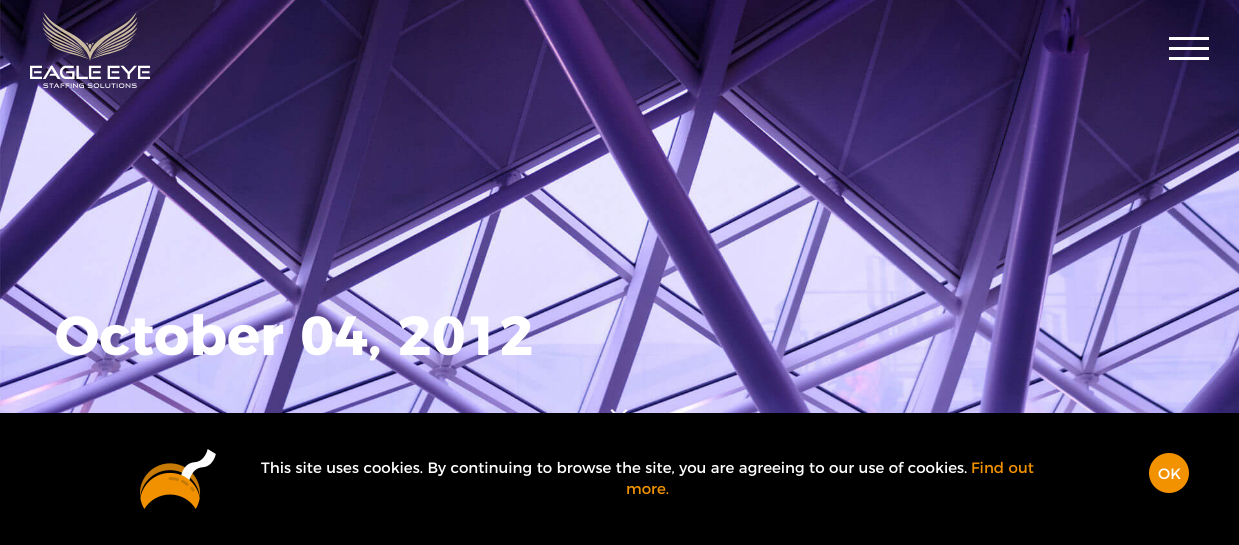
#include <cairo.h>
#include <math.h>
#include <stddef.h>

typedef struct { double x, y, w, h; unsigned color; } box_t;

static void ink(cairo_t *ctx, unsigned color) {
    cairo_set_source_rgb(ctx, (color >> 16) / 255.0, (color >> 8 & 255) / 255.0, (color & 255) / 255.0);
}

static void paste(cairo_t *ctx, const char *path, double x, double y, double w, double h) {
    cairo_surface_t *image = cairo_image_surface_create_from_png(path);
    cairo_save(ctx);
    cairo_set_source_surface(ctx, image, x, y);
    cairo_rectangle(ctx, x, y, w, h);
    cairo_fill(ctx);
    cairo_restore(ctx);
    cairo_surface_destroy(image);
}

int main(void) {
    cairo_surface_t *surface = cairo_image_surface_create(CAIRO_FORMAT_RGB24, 1239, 545);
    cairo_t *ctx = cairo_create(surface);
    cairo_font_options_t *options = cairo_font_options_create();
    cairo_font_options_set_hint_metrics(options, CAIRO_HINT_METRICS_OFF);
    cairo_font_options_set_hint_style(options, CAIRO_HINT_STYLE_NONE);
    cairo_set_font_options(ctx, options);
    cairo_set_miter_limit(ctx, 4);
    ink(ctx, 0xFFFFFF);
    cairo_paint(ctx);
    paste(ctx, "media/2.png", 0, 0, 1239, 413);
    paste(ctx, "media/1.png", 30, 12, 120, 76);
    {
        static const box_t items[] = {
            {1169, 57, 40, 3, 0xFFFFFF},
            {1169, 37, 40, 3, 0xFFFFFF},
            {1169, 47, 40, 3, 0xFFFFFF},
        };
        for (size_t i = 0; i < sizeof items / sizeof *items; i++) {
            ink(ctx, items[i].color);
            cairo_rectangle(ctx, items[i].x, items[i].y, items[i].w, items[i].h);
            cairo_fill(ctx);
        }
    }
    cairo_select_font_face(ctx, "Montserrat", CAIRO_FONT_SLANT_NORMAL, CAIRO_FONT_WEIGHT_BOLD);
    cairo_set_font_size(ctx, 55);
    cairo_move_to(ctx, 55, 355);
    cairo_show_text(ctx, "October 04, 2012");
    cairo_new_path(ctx);
    cairo_move_to(ctx, 626, 409);
    cairo_line_to(ctx, 627.5, 410.5);
    cairo_line_to(ctx, 619, 419);
    cairo_line_to(ctx, 617.5, 417.5);
    cairo_close_path(ctx);
    cairo_fill(ctx);
    cairo_new_path(ctx);
    cairo_move_to(ctx, 612, 409);
    cairo_line_to(ctx, 620.5, 417.5);
    cairo_line_to(ctx, 619, 419);
    cairo_line_to(ctx, 610.5, 410.5);
    cairo_close_path(ctx);
    cairo_fill(ctx);
    ink(ctx, 0x000000);
    cairo_rectangle(ctx, 0, 413, 1239, 132);
    cairo_fill(ctx);
    paste(ctx, "media/3.png", 140, 449, 76, 60);
    cairo_select_font_face(ctx, "Montserrat", CAIRO_FONT_SLANT_NORMAL, CAIRO_FONT_WEIGHT_NORMAL);
    cairo_set_font_size(ctx, 15);
    ink(ctx, 0xFFFFFF);
    cairo_move_to(ctx, 261, 473);
    cairo_show_text(ctx, "This site uses cookies. By continuing to browse the site, you are agreeing to our use of cookies.");
    ink(ctx, 0xF29200);
    cairo_move_to(ctx, 971, 473);
    cairo_show_text(ctx, "Find out");
    cairo_move_to(ctx, 626, 494);
    cairo_show_text(ctx, "more.");
    cairo_new_path(ctx);
    cairo_arc(ctx, 1169, 473, 20, 0, 2 * M_PI);
    cairo_fill(ctx);
    ink(ctx, 0xFFFFFF);
    cairo_move_to(ctx, 1158, 479);
    cairo_show_text(ctx, "OK");
    cairo_surface_write_to_png(surface, "image.png");
    cairo_font_options_destroy(options);
    cairo_destroy(ctx);
    cairo_surface_destroy(surface);
    return 0;
}
